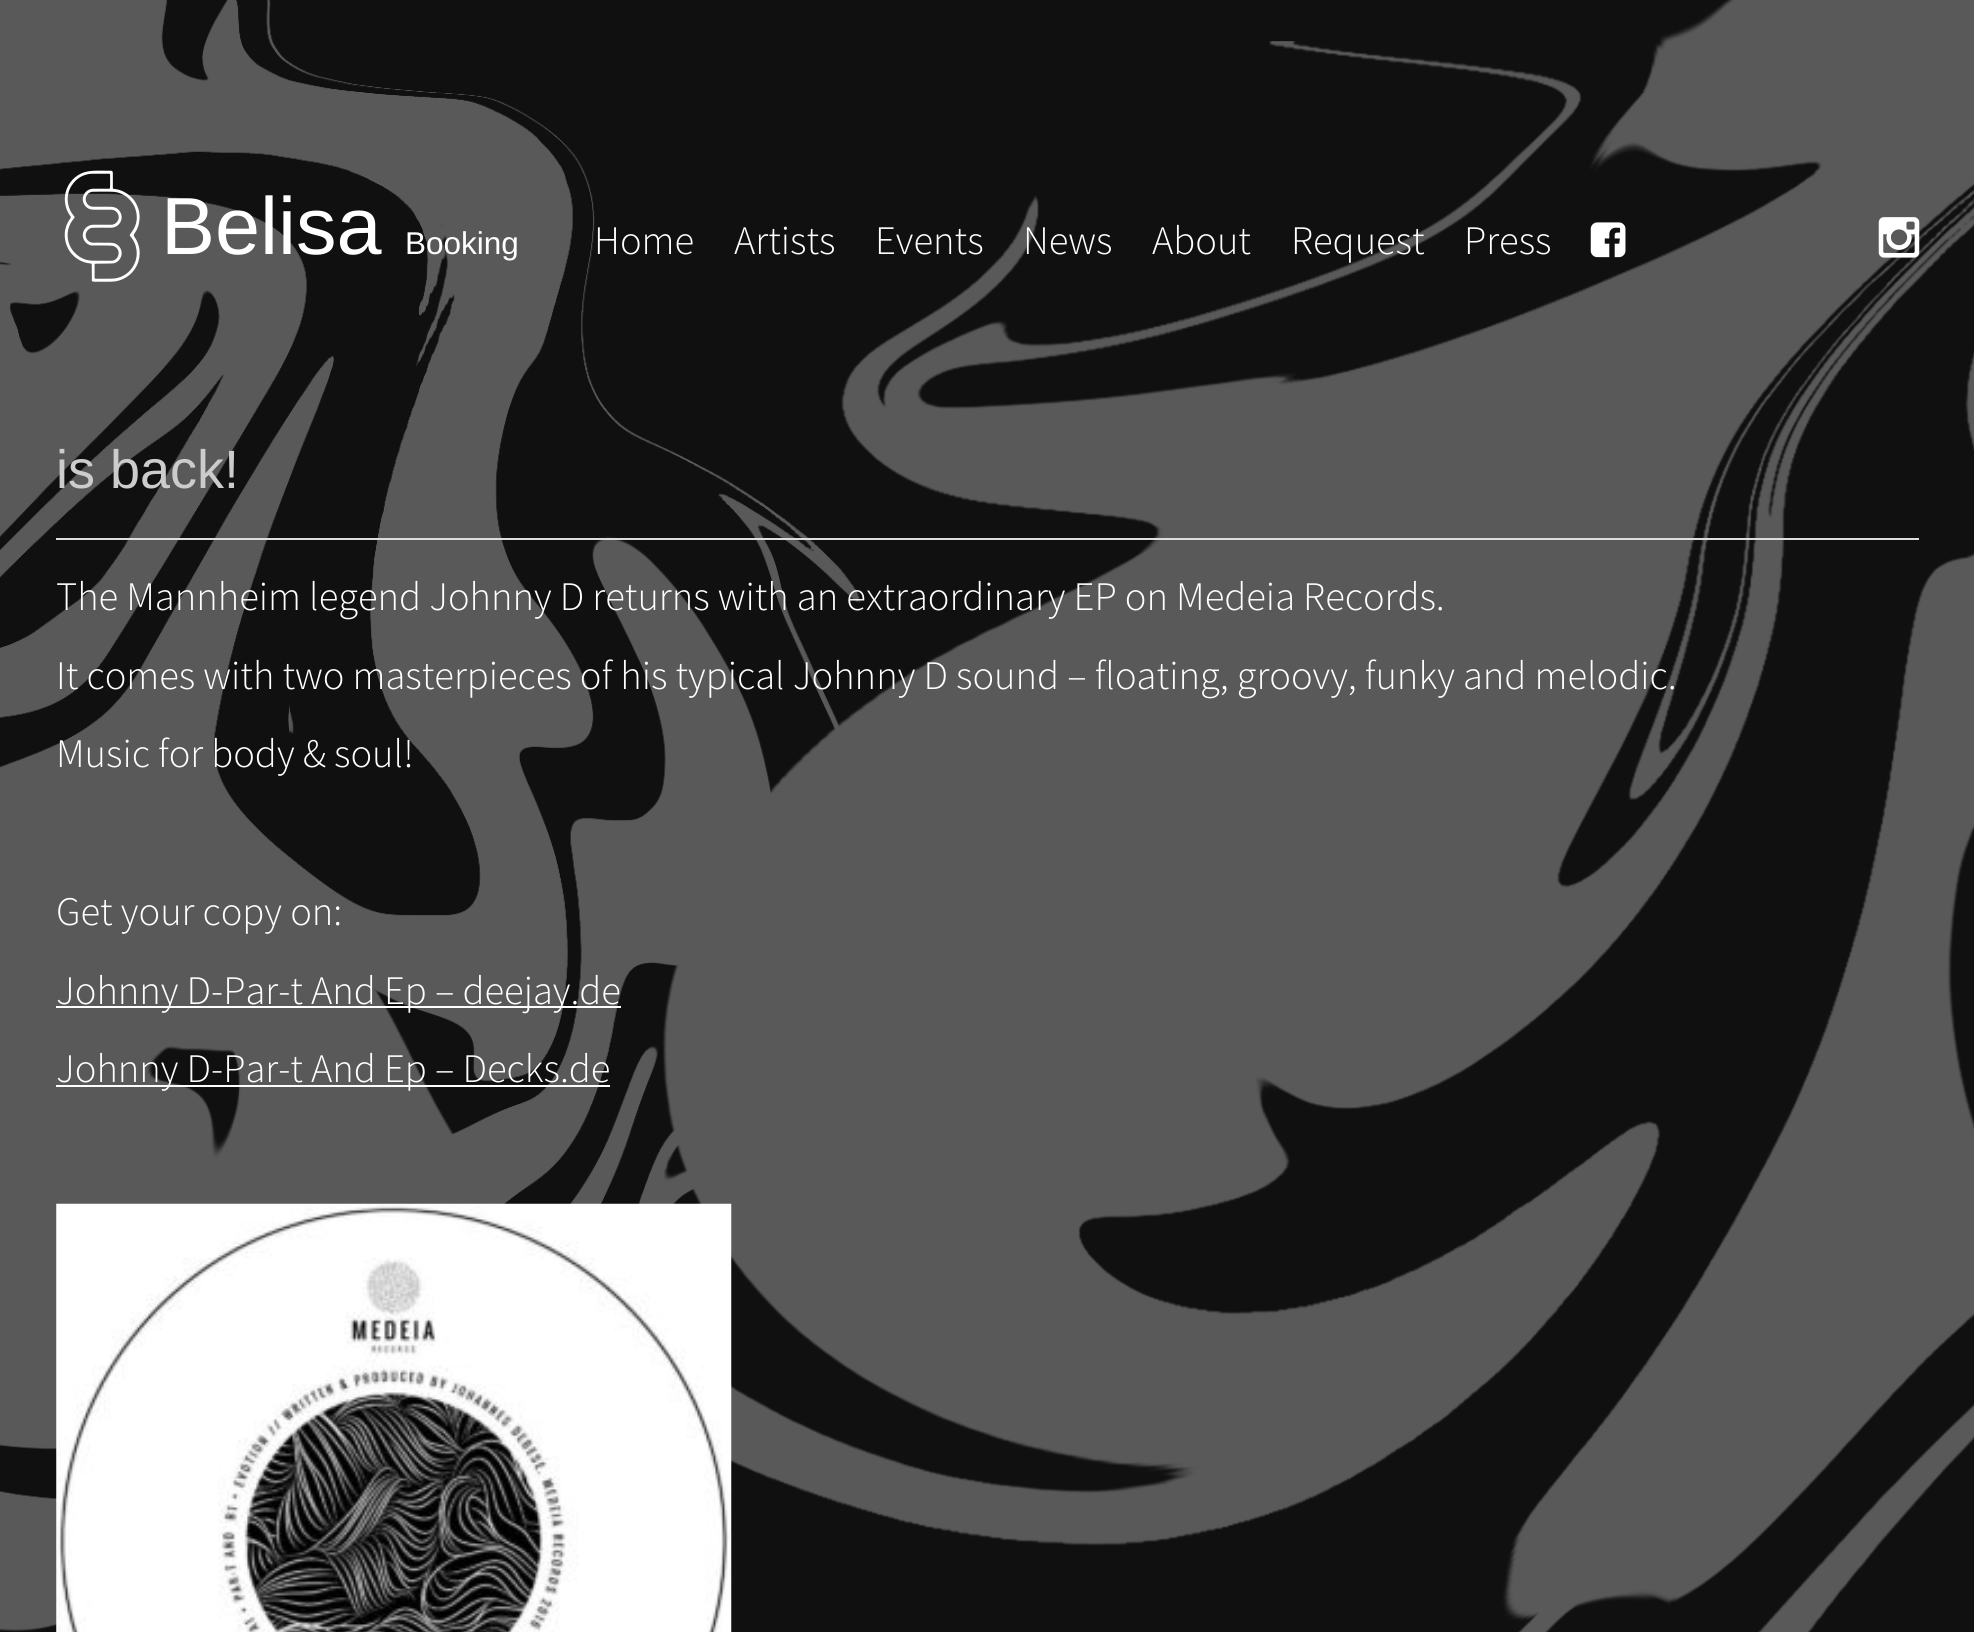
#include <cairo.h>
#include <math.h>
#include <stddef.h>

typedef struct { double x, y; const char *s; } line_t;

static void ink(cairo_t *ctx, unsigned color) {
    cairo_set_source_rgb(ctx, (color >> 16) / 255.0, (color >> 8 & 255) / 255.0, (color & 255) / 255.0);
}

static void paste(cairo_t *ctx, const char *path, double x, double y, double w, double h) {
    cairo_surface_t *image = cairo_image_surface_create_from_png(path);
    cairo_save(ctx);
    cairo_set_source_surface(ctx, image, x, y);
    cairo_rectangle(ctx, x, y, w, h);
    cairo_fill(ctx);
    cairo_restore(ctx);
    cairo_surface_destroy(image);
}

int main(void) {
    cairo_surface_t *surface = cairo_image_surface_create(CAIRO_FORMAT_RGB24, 1974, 1632);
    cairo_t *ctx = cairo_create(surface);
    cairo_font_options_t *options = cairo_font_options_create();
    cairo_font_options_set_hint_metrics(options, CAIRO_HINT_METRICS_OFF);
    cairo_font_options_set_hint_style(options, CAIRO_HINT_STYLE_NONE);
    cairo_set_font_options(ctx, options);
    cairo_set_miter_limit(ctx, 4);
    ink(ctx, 0x212121);
    cairo_paint(ctx);
    paste(ctx, "media/4.png", 0, 0, 1974, 1632);
    paste(ctx, "media/1.png", 64, 170, 76, 112);
    cairo_select_font_face(ctx, "Liberation Sans", CAIRO_FONT_SLANT_NORMAL, CAIRO_FONT_WEIGHT_NORMAL);
    cairo_set_font_size(ctx, 81);
    ink(ctx, 0xFFFFFF);
    cairo_move_to(ctx, 161, 254);
    cairo_show_text(ctx, "Belisa");
    cairo_set_font_size(ctx, 31.5);
    cairo_move_to(ctx, 405, 254);
    cairo_show_text(ctx, "Booking");
    cairo_select_font_face(ctx, "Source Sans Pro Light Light", CAIRO_FONT_SLANT_NORMAL, CAIRO_FONT_WEIGHT_NORMAL);
    cairo_set_font_size(ctx, 40.5);
    {
        static const line_t items[] = {
            {594, 254, "Home"},
            {734, 254, "Artists"},
            {875, 254, "Events"},
            {1023, 254, "News"},
            {1152, 254, "About"},
            {1291, 254, "Request"},
            {1464, 254, "Press"},
        };
        for (size_t i = 0; i < sizeof items / sizeof *items; i++) {
            cairo_move_to(ctx, items[i].x, items[i].y);
            cairo_show_text(ctx, items[i].s);
        }
    }
    paste(ctx, "media/2.png", 1590, 222, 36, 36);
    paste(ctx, "media/3.png", 1878, 217, 42, 41);
    cairo_select_font_face(ctx, "Liberation Sans", CAIRO_FONT_SLANT_NORMAL, CAIRO_FONT_WEIGHT_NORMAL);
    cairo_set_font_size(ctx, 54);
    ink(ctx, 0xCCCCCC);
    cairo_move_to(ctx, 56, 488);
    cairo_show_text(ctx, "is back!");
    ink(ctx, 0xDDDDDD);
    cairo_rectangle(ctx, 56, 538, 1863, 2);
    cairo_fill(ctx);
    cairo_select_font_face(ctx, "Source Sans Pro Light Light", CAIRO_FONT_SLANT_NORMAL, CAIRO_FONT_WEIGHT_NORMAL);
    cairo_set_font_size(ctx, 40.5);
    ink(ctx, 0xFFFFFF);
    {
        static const line_t items[] = {
            {56, 610, "The Mannheim legend Johnny D returns with an extraordinary EP on Medeia Records."},
            {56, 689, "It comes with two masterpieces of his typical Johnny D sound – floating, groovy, funky and melodic."},
            {56, 767, "Music for body & soul!"},
            {56, 925, "Get your copy on:"},
        };
        for (size_t i = 0; i < sizeof items / sizeof *items; i++) {
            cairo_move_to(ctx, items[i].x, items[i].y);
            cairo_show_text(ctx, items[i].s);
        }
    }
    cairo_rectangle(ctx, 56, 1006, 565, 2);
    cairo_fill(ctx);
    cairo_move_to(ctx, 56, 1004);
    cairo_show_text(ctx, "Johnny D-Par-t And Ep – deejay.de");
    cairo_rectangle(ctx, 56, 1085, 554, 2);
    cairo_fill(ctx);
    cairo_move_to(ctx, 56, 1082);
    cairo_show_text(ctx, "Johnny D-Par-t And Ep – Decks.de");
    paste(ctx, "media/5.png", 56, 1203, 676, 429);
    cairo_surface_write_to_png(surface, "image.png");
    cairo_font_options_destroy(options);
    cairo_destroy(ctx);
    cairo_surface_destroy(surface);
    return 0;
}
